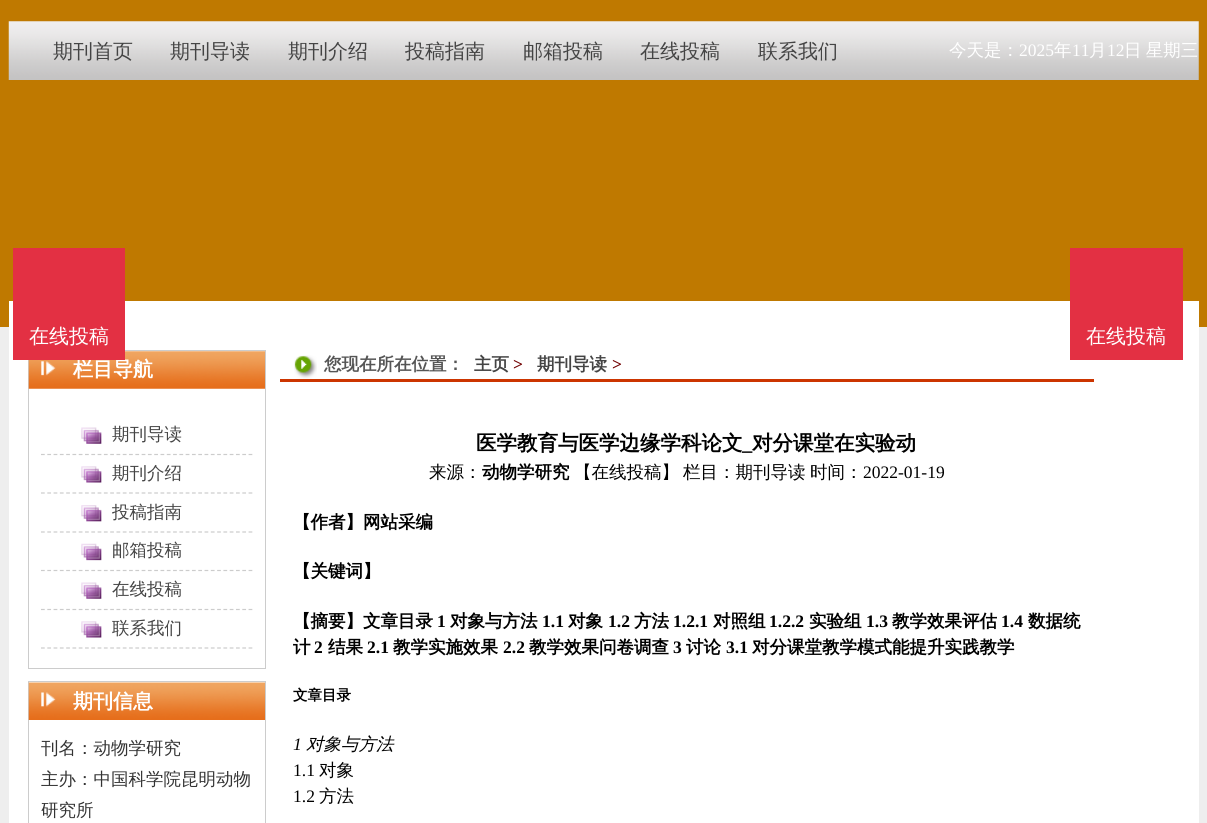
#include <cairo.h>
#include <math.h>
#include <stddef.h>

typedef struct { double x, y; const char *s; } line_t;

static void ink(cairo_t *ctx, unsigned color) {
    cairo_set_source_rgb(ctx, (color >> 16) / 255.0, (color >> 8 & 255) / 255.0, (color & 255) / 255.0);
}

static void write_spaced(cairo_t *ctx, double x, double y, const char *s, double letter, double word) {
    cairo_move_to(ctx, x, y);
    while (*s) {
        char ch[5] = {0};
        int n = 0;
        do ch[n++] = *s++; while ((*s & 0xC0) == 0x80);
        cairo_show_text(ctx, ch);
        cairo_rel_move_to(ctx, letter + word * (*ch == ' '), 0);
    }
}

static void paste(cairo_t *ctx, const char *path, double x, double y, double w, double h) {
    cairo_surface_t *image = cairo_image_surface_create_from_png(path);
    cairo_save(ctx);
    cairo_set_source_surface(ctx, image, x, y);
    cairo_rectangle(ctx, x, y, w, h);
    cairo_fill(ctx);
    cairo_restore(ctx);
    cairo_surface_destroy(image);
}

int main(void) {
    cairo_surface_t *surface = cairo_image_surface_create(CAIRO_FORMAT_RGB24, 1207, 823);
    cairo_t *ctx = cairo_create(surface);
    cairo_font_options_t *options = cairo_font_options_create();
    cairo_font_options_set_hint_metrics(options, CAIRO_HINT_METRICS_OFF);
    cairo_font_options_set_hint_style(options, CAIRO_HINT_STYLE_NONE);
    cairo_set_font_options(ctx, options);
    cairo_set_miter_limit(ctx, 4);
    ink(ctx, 0xEEEEEE);
    cairo_paint(ctx);
    ink(ctx, 0xBF7900);
    cairo_rectangle(ctx, 0, 0, 1207, 327);
    cairo_fill(ctx);
    paste(ctx, "media/1.png", 8, 21, 1191, 59);
    cairo_select_font_face(ctx, "WenQuanYi Zen Hei Medium", CAIRO_FONT_SLANT_NORMAL, CAIRO_FONT_WEIGHT_NORMAL);
    cairo_set_font_size(ctx, 20);
    ink(ctx, 0x444444);
    {
        static const line_t items[] = {
            {53, 58, "期刊首页"},
            {170, 58, "期刊导读"},
            {288, 58, "期刊介绍"},
            {405, 58, "投稿指南"},
            {523, 58, "邮箱投稿"},
            {640, 58, "在线投稿"},
            {758, 58, "联系我们"},
        };
        for (size_t i = 0; i < sizeof items / sizeof *items; i++) {
            cairo_move_to(ctx, items[i].x, items[i].y);
            cairo_show_text(ctx, items[i].s);
        }
    }
    cairo_set_font_size(ctx, 17.5);
    ink(ctx, 0xFFFFFF);
    cairo_move_to(ctx, 949, 56);
    cairo_show_text(ctx, "今天是：");
    cairo_select_font_face(ctx, "Liberation Serif", CAIRO_FONT_SLANT_NORMAL, CAIRO_FONT_WEIGHT_NORMAL);
    cairo_move_to(ctx, 1019, 56);
    cairo_show_text(ctx, "2025");
    cairo_select_font_face(ctx, "WenQuanYi Zen Hei Medium", CAIRO_FONT_SLANT_NORMAL, CAIRO_FONT_WEIGHT_NORMAL);
    cairo_move_to(ctx, 1054, 56);
    cairo_show_text(ctx, "年");
    cairo_select_font_face(ctx, "Liberation Serif", CAIRO_FONT_SLANT_NORMAL, CAIRO_FONT_WEIGHT_NORMAL);
    cairo_move_to(ctx, 1072, 56);
    cairo_show_text(ctx, "11");
    cairo_select_font_face(ctx, "WenQuanYi Zen Hei Medium", CAIRO_FONT_SLANT_NORMAL, CAIRO_FONT_WEIGHT_NORMAL);
    cairo_move_to(ctx, 1089, 56);
    cairo_show_text(ctx, "月");
    cairo_select_font_face(ctx, "Liberation Serif", CAIRO_FONT_SLANT_NORMAL, CAIRO_FONT_WEIGHT_NORMAL);
    cairo_move_to(ctx, 1107, 56);
    cairo_show_text(ctx, "12");
    cairo_select_font_face(ctx, "WenQuanYi Zen Hei Medium", CAIRO_FONT_SLANT_NORMAL, CAIRO_FONT_WEIGHT_NORMAL);
    write_spaced(ctx, 1124, 56, "日 星期三", 0, -1);
    cairo_rectangle(ctx, 9, 301, 1190, 522);
    cairo_fill(ctx);
    cairo_rectangle(ctx, 28.5, 350.5, 237, 318);
    ink(ctx, 0xCCCCCC);
    cairo_set_line_width(ctx, 1);
    cairo_stroke(ctx);
    paste(ctx, "media/2.png", 28, 351, 237, 38);
    cairo_select_font_face(ctx, "WenQuanYi Zen Hei", CAIRO_FONT_SLANT_NORMAL, CAIRO_FONT_WEIGHT_BOLD);
    cairo_set_font_size(ctx, 20);
    ink(ctx, 0xFFFFFF);
    cairo_move_to(ctx, 73, 376);
    cairo_show_text(ctx, "栏目导航");
    paste(ctx, "media/3.png", 81, 427, 21, 17);
    cairo_new_path(ctx);
    cairo_move_to(ctx, 41, 454.5);
    cairo_line_to(ctx, 252.5, 454.5);
    ink(ctx, 0xCCCCCC);
    cairo_set_line_width(ctx, 1.2);
    cairo_set_dash(ctx, (double[]){3.75, 2.54}, 2, 0);
    cairo_stroke(ctx);
    cairo_select_font_face(ctx, "WenQuanYi Zen Hei Medium", CAIRO_FONT_SLANT_NORMAL, CAIRO_FONT_WEIGHT_NORMAL);
    cairo_set_font_size(ctx, 17.5);
    ink(ctx, 0x444444);
    cairo_move_to(ctx, 112, 440);
    cairo_show_text(ctx, "期刊导读");
    paste(ctx, "media/4.png", 81, 466, 21, 17);
    cairo_new_path(ctx);
    cairo_move_to(ctx, 41, 493);
    cairo_line_to(ctx, 252.5, 493);
    ink(ctx, 0xCCCCCC);
    cairo_stroke(ctx);
    ink(ctx, 0x444444);
    cairo_move_to(ctx, 112, 479);
    cairo_show_text(ctx, "期刊介绍");
    paste(ctx, "media/5.png", 81, 505, 21, 17);
    cairo_new_path(ctx);
    cairo_move_to(ctx, 41, 532);
    cairo_line_to(ctx, 252.5, 532);
    ink(ctx, 0xCCCCCC);
    cairo_stroke(ctx);
    ink(ctx, 0x444444);
    cairo_move_to(ctx, 112, 518);
    cairo_show_text(ctx, "投稿指南");
    paste(ctx, "media/6.png", 81, 543, 21, 18);
    cairo_new_path(ctx);
    cairo_move_to(ctx, 41, 570.5);
    cairo_line_to(ctx, 252.5, 570.5);
    ink(ctx, 0xCCCCCC);
    cairo_stroke(ctx);
    ink(ctx, 0x444444);
    cairo_move_to(ctx, 112, 556);
    cairo_show_text(ctx, "邮箱投稿");
    paste(ctx, "media/7.png", 81, 582, 21, 17);
    cairo_new_path(ctx);
    cairo_move_to(ctx, 41, 609.5);
    cairo_line_to(ctx, 252.5, 609.5);
    ink(ctx, 0xCCCCCC);
    cairo_stroke(ctx);
    ink(ctx, 0x444444);
    cairo_move_to(ctx, 112, 595);
    cairo_show_text(ctx, "在线投稿");
    paste(ctx, "media/4.png", 81, 621, 21, 17);
    cairo_new_path(ctx);
    cairo_move_to(ctx, 41, 648);
    cairo_line_to(ctx, 252.5, 648);
    ink(ctx, 0xCCCCCC);
    cairo_stroke(ctx);
    ink(ctx, 0x444444);
    cairo_move_to(ctx, 112, 634);
    cairo_show_text(ctx, "联系我们");
    cairo_rectangle(ctx, 28.5, 681.5, 237, 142);
    ink(ctx, 0xCCCCCC);
    cairo_set_line_width(ctx, 1);
    cairo_set_dash(ctx, NULL, 0, 0);
    cairo_stroke(ctx);
    paste(ctx, "media/8.png", 28, 682, 237, 38);
    cairo_select_font_face(ctx, "WenQuanYi Zen Hei", CAIRO_FONT_SLANT_NORMAL, CAIRO_FONT_WEIGHT_BOLD);
    cairo_set_font_size(ctx, 20);
    ink(ctx, 0xFFFFFF);
    cairo_move_to(ctx, 73, 708);
    cairo_show_text(ctx, "期刊信息");
    cairo_select_font_face(ctx, "WenQuanYi Zen Hei Medium", CAIRO_FONT_SLANT_NORMAL, CAIRO_FONT_WEIGHT_NORMAL);
    cairo_set_font_size(ctx, 17.5);
    ink(ctx, 0x333333);
    {
        static const line_t items[] = {
            {41, 754, "刊名：动物学研究"},
            {41, 785, "主办：中国科学院昆明动物"},
            {41, 816, "研究所"},
        };
        for (size_t i = 0; i < sizeof items / sizeof *items; i++) {
            cairo_move_to(ctx, items[i].x, items[i].y);
            cairo_show_text(ctx, items[i].s);
        }
    }
    ink(ctx, 0xCC3500);
    cairo_rectangle(ctx, 280, 379, 814, 3);
    cairo_fill(ctx);
    paste(ctx, "media/9.png", 294, 355, 23, 24);
    cairo_select_font_face(ctx, "WenQuanYi Zen Hei", CAIRO_FONT_SLANT_NORMAL, CAIRO_FONT_WEIGHT_BOLD);
    ink(ctx, 0x555555);
    cairo_move_to(ctx, 324, 370);
    cairo_show_text(ctx, "您现在所在位置：");
    ink(ctx, 0x444444);
    cairo_move_to(ctx, 474, 370);
    cairo_show_text(ctx, "主页");
    cairo_select_font_face(ctx, "Liberation Serif", CAIRO_FONT_SLANT_NORMAL, CAIRO_FONT_WEIGHT_BOLD);
    ink(ctx, 0x710101);
    cairo_move_to(ctx, 513, 370);
    cairo_show_text(ctx, ">");
    cairo_select_font_face(ctx, "WenQuanYi Zen Hei", CAIRO_FONT_SLANT_NORMAL, CAIRO_FONT_WEIGHT_BOLD);
    ink(ctx, 0x444444);
    cairo_move_to(ctx, 537, 370);
    cairo_show_text(ctx, "期刊导读");
    cairo_select_font_face(ctx, "Liberation Serif", CAIRO_FONT_SLANT_NORMAL, CAIRO_FONT_WEIGHT_BOLD);
    ink(ctx, 0x710101);
    cairo_move_to(ctx, 612, 370);
    cairo_show_text(ctx, ">");
    cairo_select_font_face(ctx, "WenQuanYi Zen Hei", CAIRO_FONT_SLANT_NORMAL, CAIRO_FONT_WEIGHT_BOLD);
    cairo_set_font_size(ctx, 20.5);
    ink(ctx, 0x000000);
    cairo_move_to(ctx, 476, 450);
    cairo_show_text(ctx, "医学教育与医学边缘学科论文");
    cairo_select_font_face(ctx, "Liberation Serif", CAIRO_FONT_SLANT_NORMAL, CAIRO_FONT_WEIGHT_BOLD);
    cairo_move_to(ctx, 742, 450);
    cairo_show_text(ctx, "_");
    cairo_select_font_face(ctx, "WenQuanYi Zen Hei", CAIRO_FONT_SLANT_NORMAL, CAIRO_FONT_WEIGHT_BOLD);
    cairo_move_to(ctx, 752, 450);
    cairo_show_text(ctx, "对分课堂在实验动");
    cairo_select_font_face(ctx, "WenQuanYi Zen Hei Medium", CAIRO_FONT_SLANT_NORMAL, CAIRO_FONT_WEIGHT_NORMAL);
    cairo_set_font_size(ctx, 17.5);
    cairo_move_to(ctx, 429, 478);
    cairo_show_text(ctx, "来源：");
    cairo_select_font_face(ctx, "WenQuanYi Zen Hei", CAIRO_FONT_SLANT_NORMAL, CAIRO_FONT_WEIGHT_BOLD);
    cairo_move_to(ctx, 482, 478);
    cairo_show_text(ctx, "动物学研究");
    cairo_select_font_face(ctx, "WenQuanYi Zen Hei Medium", CAIRO_FONT_SLANT_NORMAL, CAIRO_FONT_WEIGHT_NORMAL);
    {
        static const line_t items[] = {
            {574, 478, "【在线投稿】"},
            {683, 478, "栏目：期刊导读"},
            {810, 478, "时间："},
        };
        for (size_t i = 0; i < sizeof items / sizeof *items; i++) {
            cairo_move_to(ctx, items[i].x, items[i].y);
            cairo_show_text(ctx, items[i].s);
        }
    }
    cairo_select_font_face(ctx, "Liberation Serif", CAIRO_FONT_SLANT_NORMAL, CAIRO_FONT_WEIGHT_NORMAL);
    cairo_move_to(ctx, 863, 478);
    cairo_show_text(ctx, "2022-01-19");
    cairo_select_font_face(ctx, "WenQuanYi Zen Hei", CAIRO_FONT_SLANT_NORMAL, CAIRO_FONT_WEIGHT_BOLD);
    {
        static const line_t items[] = {
            {293, 528, "【作者】网站采编"},
            {293, 577, "【关键词】"},
            {293, 627, "【摘要】文章目录"},
        };
        for (size_t i = 0; i < sizeof items / sizeof *items; i++) {
            cairo_move_to(ctx, items[i].x, items[i].y);
            cairo_show_text(ctx, items[i].s);
        }
    }
    cairo_select_font_face(ctx, "Liberation Serif", CAIRO_FONT_SLANT_NORMAL, CAIRO_FONT_WEIGHT_BOLD);
    cairo_move_to(ctx, 437, 627);
    cairo_show_text(ctx, "1");
    cairo_select_font_face(ctx, "WenQuanYi Zen Hei", CAIRO_FONT_SLANT_NORMAL, CAIRO_FONT_WEIGHT_BOLD);
    cairo_move_to(ctx, 450, 627);
    cairo_show_text(ctx, "对象与方法");
    cairo_select_font_face(ctx, "Liberation Serif", CAIRO_FONT_SLANT_NORMAL, CAIRO_FONT_WEIGHT_BOLD);
    cairo_move_to(ctx, 542, 627);
    cairo_show_text(ctx, "1.1");
    cairo_select_font_face(ctx, "WenQuanYi Zen Hei", CAIRO_FONT_SLANT_NORMAL, CAIRO_FONT_WEIGHT_BOLD);
    cairo_move_to(ctx, 568, 627);
    cairo_show_text(ctx, "对象");
    cairo_select_font_face(ctx, "Liberation Serif", CAIRO_FONT_SLANT_NORMAL, CAIRO_FONT_WEIGHT_BOLD);
    cairo_move_to(ctx, 608, 627);
    cairo_show_text(ctx, "1.2");
    cairo_select_font_face(ctx, "WenQuanYi Zen Hei", CAIRO_FONT_SLANT_NORMAL, CAIRO_FONT_WEIGHT_BOLD);
    cairo_move_to(ctx, 634, 627);
    cairo_show_text(ctx, "方法");
    cairo_select_font_face(ctx, "Liberation Serif", CAIRO_FONT_SLANT_NORMAL, CAIRO_FONT_WEIGHT_BOLD);
    cairo_move_to(ctx, 673, 627);
    cairo_show_text(ctx, "1.2.1");
    cairo_select_font_face(ctx, "WenQuanYi Zen Hei", CAIRO_FONT_SLANT_NORMAL, CAIRO_FONT_WEIGHT_BOLD);
    cairo_move_to(ctx, 713, 627);
    cairo_show_text(ctx, "对照组");
    cairo_select_font_face(ctx, "Liberation Serif", CAIRO_FONT_SLANT_NORMAL, CAIRO_FONT_WEIGHT_BOLD);
    cairo_move_to(ctx, 769, 627);
    cairo_show_text(ctx, "1.2.2");
    cairo_select_font_face(ctx, "WenQuanYi Zen Hei", CAIRO_FONT_SLANT_NORMAL, CAIRO_FONT_WEIGHT_BOLD);
    cairo_move_to(ctx, 809, 627);
    cairo_show_text(ctx, "实验组");
    cairo_select_font_face(ctx, "Liberation Serif", CAIRO_FONT_SLANT_NORMAL, CAIRO_FONT_WEIGHT_BOLD);
    cairo_move_to(ctx, 866, 627);
    cairo_show_text(ctx, "1.3");
    cairo_select_font_face(ctx, "WenQuanYi Zen Hei", CAIRO_FONT_SLANT_NORMAL, CAIRO_FONT_WEIGHT_BOLD);
    cairo_move_to(ctx, 892, 627);
    cairo_show_text(ctx, "教学效果评估");
    cairo_select_font_face(ctx, "Liberation Serif", CAIRO_FONT_SLANT_NORMAL, CAIRO_FONT_WEIGHT_BOLD);
    cairo_move_to(ctx, 1001, 627);
    cairo_show_text(ctx, "1.4");
    cairo_select_font_face(ctx, "WenQuanYi Zen Hei", CAIRO_FONT_SLANT_NORMAL, CAIRO_FONT_WEIGHT_BOLD);
    cairo_move_to(ctx, 1028, 627);
    cairo_show_text(ctx, "数据统");
    cairo_move_to(ctx, 293, 653);
    cairo_show_text(ctx, "计");
    cairo_select_font_face(ctx, "Liberation Serif", CAIRO_FONT_SLANT_NORMAL, CAIRO_FONT_WEIGHT_BOLD);
    cairo_move_to(ctx, 314, 653);
    cairo_show_text(ctx, "2");
    cairo_select_font_face(ctx, "WenQuanYi Zen Hei", CAIRO_FONT_SLANT_NORMAL, CAIRO_FONT_WEIGHT_BOLD);
    cairo_move_to(ctx, 328, 653);
    cairo_show_text(ctx, "结果");
    cairo_select_font_face(ctx, "Liberation Serif", CAIRO_FONT_SLANT_NORMAL, CAIRO_FONT_WEIGHT_BOLD);
    cairo_move_to(ctx, 367, 653);
    cairo_show_text(ctx, "2.1");
    cairo_select_font_face(ctx, "WenQuanYi Zen Hei", CAIRO_FONT_SLANT_NORMAL, CAIRO_FONT_WEIGHT_BOLD);
    cairo_move_to(ctx, 393, 653);
    cairo_show_text(ctx, "教学实施效果");
    cairo_select_font_face(ctx, "Liberation Serif", CAIRO_FONT_SLANT_NORMAL, CAIRO_FONT_WEIGHT_BOLD);
    cairo_move_to(ctx, 503, 653);
    cairo_show_text(ctx, "2.2");
    cairo_select_font_face(ctx, "WenQuanYi Zen Hei", CAIRO_FONT_SLANT_NORMAL, CAIRO_FONT_WEIGHT_BOLD);
    cairo_move_to(ctx, 529, 653);
    cairo_show_text(ctx, "教学效果问卷调查");
    cairo_select_font_face(ctx, "Liberation Serif", CAIRO_FONT_SLANT_NORMAL, CAIRO_FONT_WEIGHT_BOLD);
    cairo_move_to(ctx, 673, 653);
    cairo_show_text(ctx, "3");
    cairo_select_font_face(ctx, "WenQuanYi Zen Hei", CAIRO_FONT_SLANT_NORMAL, CAIRO_FONT_WEIGHT_BOLD);
    cairo_move_to(ctx, 686, 653);
    cairo_show_text(ctx, "讨论");
    cairo_select_font_face(ctx, "Liberation Serif", CAIRO_FONT_SLANT_NORMAL, CAIRO_FONT_WEIGHT_BOLD);
    cairo_move_to(ctx, 726, 653);
    cairo_show_text(ctx, "3.1");
    cairo_select_font_face(ctx, "WenQuanYi Zen Hei", CAIRO_FONT_SLANT_NORMAL, CAIRO_FONT_WEIGHT_BOLD);
    cairo_move_to(ctx, 752, 653);
    cairo_show_text(ctx, "对分课堂教学模式能提升实践教学");
    cairo_set_font_size(ctx, 14.5);
    cairo_move_to(ctx, 293, 700);
    cairo_show_text(ctx, "文章目录");
    cairo_select_font_face(ctx, "Liberation Serif", CAIRO_FONT_SLANT_ITALIC, CAIRO_FONT_WEIGHT_NORMAL);
    cairo_set_font_size(ctx, 17.5);
    cairo_move_to(ctx, 293, 750);
    cairo_show_text(ctx, "1");
    cairo_select_font_face(ctx, "WenQuanYi Zen Hei Medium", CAIRO_FONT_SLANT_ITALIC, CAIRO_FONT_WEIGHT_NORMAL);
    cairo_move_to(ctx, 306, 750);
    cairo_show_text(ctx, "对象与方法");
    cairo_select_font_face(ctx, "Liberation Serif", CAIRO_FONT_SLANT_NORMAL, CAIRO_FONT_WEIGHT_NORMAL);
    cairo_move_to(ctx, 293, 776);
    cairo_show_text(ctx, "1.1");
    cairo_select_font_face(ctx, "WenQuanYi Zen Hei Medium", CAIRO_FONT_SLANT_NORMAL, CAIRO_FONT_WEIGHT_NORMAL);
    cairo_move_to(ctx, 319, 776);
    cairo_show_text(ctx, "对象");
    cairo_select_font_face(ctx, "Liberation Serif", CAIRO_FONT_SLANT_NORMAL, CAIRO_FONT_WEIGHT_NORMAL);
    cairo_move_to(ctx, 293, 802);
    cairo_show_text(ctx, "1.2");
    cairo_select_font_face(ctx, "WenQuanYi Zen Hei Medium", CAIRO_FONT_SLANT_NORMAL, CAIRO_FONT_WEIGHT_NORMAL);
    cairo_move_to(ctx, 319, 802);
    cairo_show_text(ctx, "方法");
    ink(ctx, 0xE33043);
    cairo_rectangle(ctx, 13, 248, 112, 112);
    cairo_fill(ctx);
    cairo_set_font_size(ctx, 20);
    ink(ctx, 0xFFFFFF);
    cairo_move_to(ctx, 29, 343);
    cairo_show_text(ctx, "在线投稿");
    ink(ctx, 0xE33043);
    cairo_rectangle(ctx, 1070, 248, 113, 112);
    cairo_fill(ctx);
    ink(ctx, 0xFFFFFF);
    cairo_move_to(ctx, 1086, 343);
    cairo_show_text(ctx, "在线投稿");
    cairo_surface_write_to_png(surface, "image.png");
    cairo_font_options_destroy(options);
    cairo_destroy(ctx);
    cairo_surface_destroy(surface);
    return 0;
}
